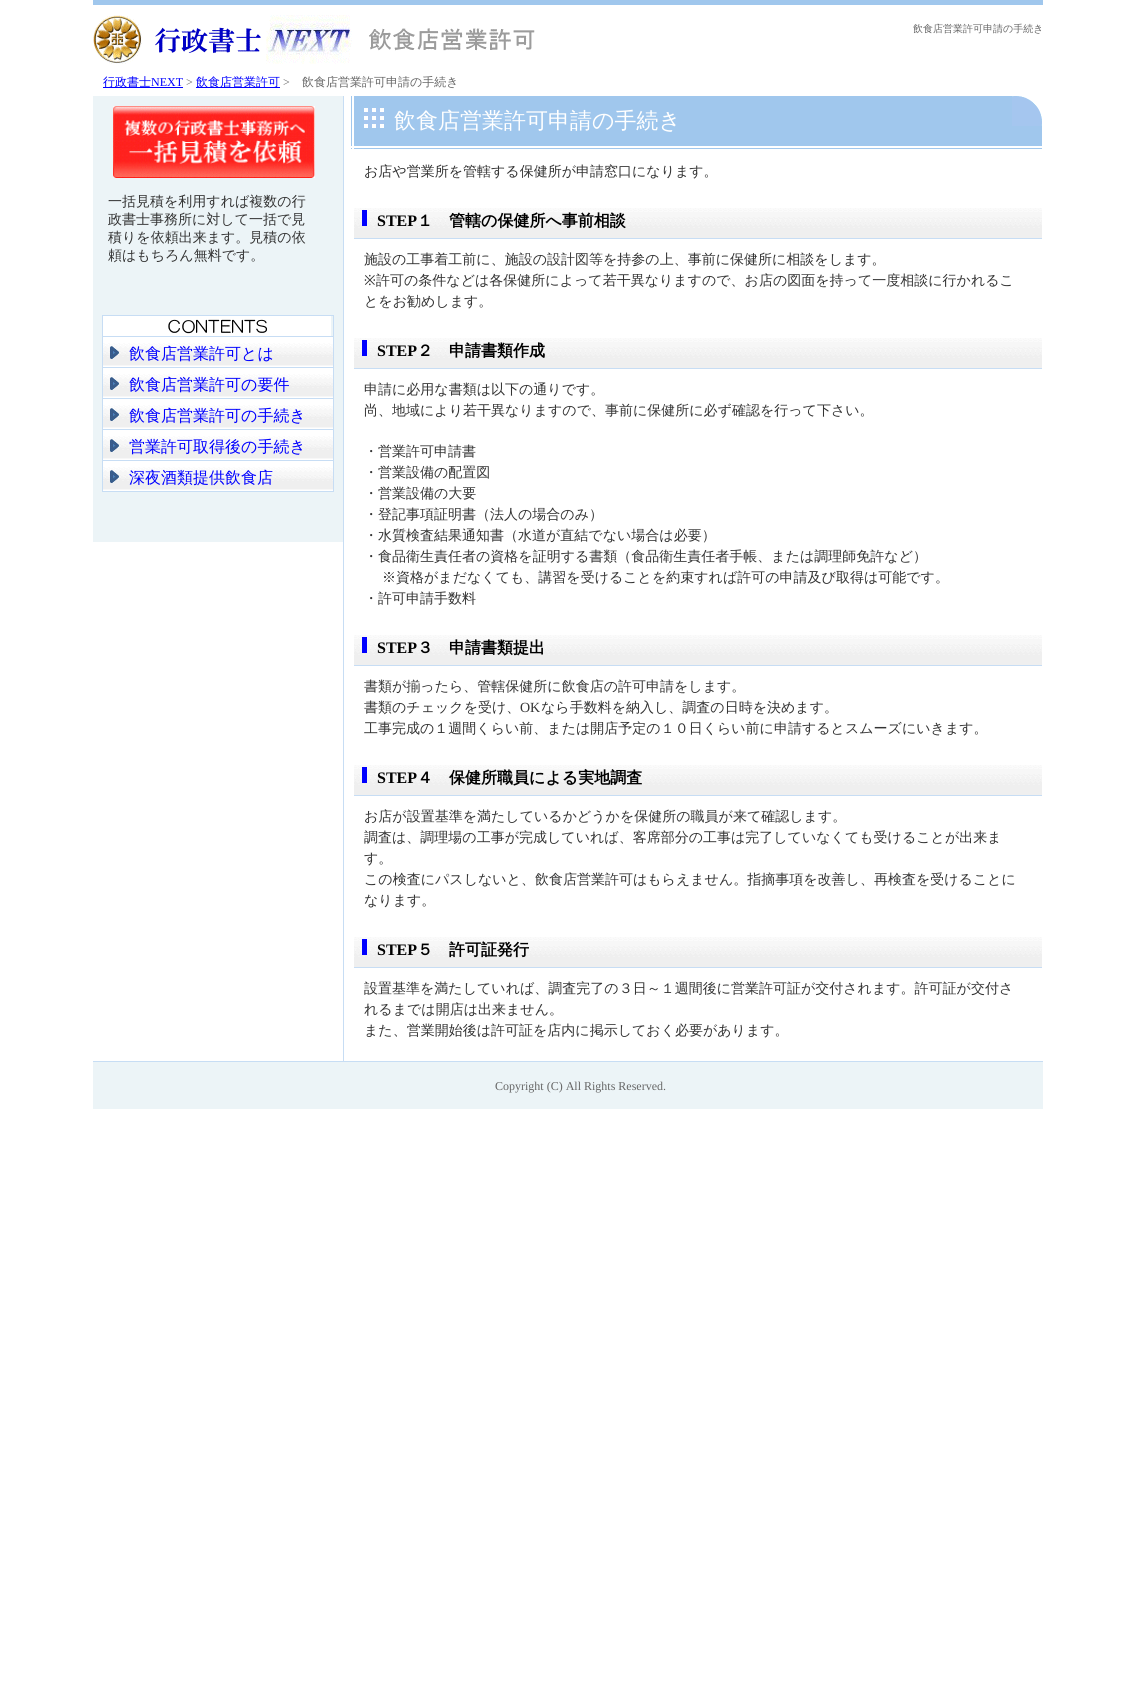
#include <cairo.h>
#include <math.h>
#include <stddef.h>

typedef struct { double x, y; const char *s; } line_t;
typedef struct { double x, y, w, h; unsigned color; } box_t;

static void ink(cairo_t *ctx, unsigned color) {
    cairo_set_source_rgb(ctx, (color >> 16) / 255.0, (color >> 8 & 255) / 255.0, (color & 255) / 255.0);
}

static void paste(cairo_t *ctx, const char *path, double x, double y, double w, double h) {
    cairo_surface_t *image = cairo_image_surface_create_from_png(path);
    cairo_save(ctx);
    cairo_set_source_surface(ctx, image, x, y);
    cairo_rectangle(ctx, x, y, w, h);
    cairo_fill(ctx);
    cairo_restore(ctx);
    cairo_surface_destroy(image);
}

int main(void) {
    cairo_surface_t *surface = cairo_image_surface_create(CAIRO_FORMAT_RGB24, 1136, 1691);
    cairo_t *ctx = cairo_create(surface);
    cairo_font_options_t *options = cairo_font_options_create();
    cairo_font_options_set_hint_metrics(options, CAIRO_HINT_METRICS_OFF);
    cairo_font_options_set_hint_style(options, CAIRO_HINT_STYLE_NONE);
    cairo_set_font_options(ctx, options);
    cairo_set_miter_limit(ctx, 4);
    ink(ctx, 0xFFFFFF);
    cairo_paint(ctx);
    ink(ctx, 0xA0C7ED);
    cairo_rectangle(ctx, 93, 0, 950, 5);
    cairo_fill(ctx);
    paste(ctx, "media/1.png", 93, 15, 259, 49);
    paste(ctx, "media/2.png", 369, 28, 166, 23);
    cairo_select_font_face(ctx, "WenQuanYi Zen Hei Medium", CAIRO_FONT_SLANT_NORMAL, CAIRO_FONT_WEIGHT_NORMAL);
    cairo_set_font_size(ctx, 10);
    ink(ctx, 0x666666);
    cairo_move_to(ctx, 913, 32);
    cairo_show_text(ctx, "飲食店営業許可申請の手続き");
    ink(ctx, 0x0000FF);
    cairo_rectangle(ctx, 103, 87, 80, 1);
    cairo_fill(ctx);
    cairo_set_font_size(ctx, 12);
    cairo_move_to(ctx, 103, 86);
    cairo_show_text(ctx, "行政書士");
    cairo_select_font_face(ctx, "Liberation Serif", CAIRO_FONT_SLANT_NORMAL, CAIRO_FONT_WEIGHT_NORMAL);
    cairo_move_to(ctx, 151, 86);
    cairo_show_text(ctx, "NEXT");
    ink(ctx, 0x666666);
    cairo_move_to(ctx, 186, 86);
    cairo_show_text(ctx, ">");
    ink(ctx, 0x0000FF);
    cairo_rectangle(ctx, 196, 87, 84, 1);
    cairo_fill(ctx);
    cairo_select_font_face(ctx, "WenQuanYi Zen Hei Medium", CAIRO_FONT_SLANT_NORMAL, CAIRO_FONT_WEIGHT_NORMAL);
    cairo_move_to(ctx, 196, 86);
    cairo_show_text(ctx, "飲食店営業許可");
    cairo_select_font_face(ctx, "Liberation Serif", CAIRO_FONT_SLANT_NORMAL, CAIRO_FONT_WEIGHT_NORMAL);
    ink(ctx, 0x666666);
    cairo_move_to(ctx, 283, 86);
    cairo_show_text(ctx, ">");
    cairo_select_font_face(ctx, "WenQuanYi Zen Hei Medium", CAIRO_FONT_SLANT_NORMAL, CAIRO_FONT_WEIGHT_NORMAL);
    cairo_move_to(ctx, 302, 86);
    cairo_show_text(ctx, "飲食店営業許可申請の手続き");
    ink(ctx, 0xECF4F7);
    cairo_rectangle(ctx, 93, 96, 250, 446);
    cairo_fill(ctx);
    paste(ctx, "media/3.png", 113, 106, 202, 72);
    cairo_set_font_size(ctx, 14);
    ink(ctx, 0x333333);
    {
        static const line_t items[] = {
            {108, 206, "一括見積を利用すれば複数の行"},
            {108, 224, "政書士事務所に対して一括で見"},
            {108, 242, "積りを依頼出来ます。見積の依"},
            {108, 260, "頼はもちろん無料です。"},
        };
        for (size_t i = 0; i < sizeof items / sizeof *items; i++) {
            cairo_move_to(ctx, items[i].x, items[i].y);
            cairo_show_text(ctx, items[i].s);
        }
    }
    cairo_rectangle(ctx, 102.5, 315.5, 231, 21);
    ink(ctx, 0xC7DDF4);
    cairo_set_line_width(ctx, 1);
    cairo_stroke(ctx);
    paste(ctx, "media/4.png", 103, 316, 228, 20);
    paste(ctx, "media/5.png", 103, 337, 230, 30);
    {
        static const box_t items[] = {
            {333, 337, 1, 155, 0xC7DDF4},
            {102, 367, 232, 1, 0xC7DDF4},
            {102, 337, 1, 31, 0xC7DDF4},
        };
        for (size_t i = 0; i < sizeof items / sizeof *items; i++) {
            ink(ctx, items[i].color);
            cairo_rectangle(ctx, items[i].x, items[i].y, items[i].w, items[i].h);
            cairo_fill(ctx);
        }
    }
    paste(ctx, "media/6.png", 110, 346, 9, 13);
    cairo_set_font_size(ctx, 16);
    ink(ctx, 0x0000FF);
    cairo_move_to(ctx, 129, 359);
    cairo_show_text(ctx, "飲食店営業許可とは");
    paste(ctx, "media/5.png", 103, 368, 230, 30);
    ink(ctx, 0xC7DDF4);
    cairo_rectangle(ctx, 102, 398, 232, 1);
    cairo_fill(ctx);
    cairo_rectangle(ctx, 102, 368, 1, 31);
    cairo_fill(ctx);
    paste(ctx, "media/6.png", 110, 377, 9, 13);
    ink(ctx, 0x0000FF);
    cairo_move_to(ctx, 129, 390);
    cairo_show_text(ctx, "飲食店営業許可の要件");
    paste(ctx, "media/5.png", 103, 399, 230, 30);
    ink(ctx, 0xC7DDF4);
    cairo_rectangle(ctx, 102, 429, 232, 1);
    cairo_fill(ctx);
    cairo_rectangle(ctx, 102, 399, 1, 31);
    cairo_fill(ctx);
    paste(ctx, "media/6.png", 110, 408, 9, 13);
    ink(ctx, 0x0000FF);
    cairo_move_to(ctx, 129, 421);
    cairo_show_text(ctx, "飲食店営業許可の手続き");
    paste(ctx, "media/5.png", 103, 430, 230, 30);
    ink(ctx, 0xC7DDF4);
    cairo_rectangle(ctx, 102, 460, 232, 1);
    cairo_fill(ctx);
    cairo_rectangle(ctx, 102, 430, 1, 31);
    cairo_fill(ctx);
    paste(ctx, "media/6.png", 110, 439, 9, 13);
    ink(ctx, 0x0000FF);
    cairo_move_to(ctx, 129, 452);
    cairo_show_text(ctx, "営業許可取得後の手続き");
    paste(ctx, "media/5.png", 103, 461, 230, 30);
    ink(ctx, 0xC7DDF4);
    cairo_rectangle(ctx, 102, 491, 232, 1);
    cairo_fill(ctx);
    cairo_rectangle(ctx, 102, 461, 1, 31);
    cairo_fill(ctx);
    paste(ctx, "media/6.png", 110, 470, 9, 13);
    ink(ctx, 0x0000FF);
    cairo_move_to(ctx, 129, 483);
    cairo_show_text(ctx, "深夜酒類提供飲食店");
    ink(ctx, 0xC7DDF4);
    cairo_rectangle(ctx, 343, 96, 1, 965);
    cairo_fill(ctx);
    ink(ctx, 0xA0C7ED);
    cairo_rectangle(ctx, 351, 96, 691, 53);
    cairo_fill(ctx);
    paste(ctx, "media/7.png", 1012, 96, 30, 30);
    ink(ctx, 0xFFFFFF);
    cairo_rectangle(ctx, 349, 146, 693, 2);
    cairo_fill(ctx);
    cairo_rectangle(ctx, 352, 96, 2, 55);
    cairo_fill(ctx);
    paste(ctx, "media/8.png", 364, 108, 20, 20);
    cairo_set_font_size(ctx, 22);
    cairo_move_to(ctx, 394, 128);
    cairo_show_text(ctx, "飲食店営業許可申請の手続き");
    cairo_set_font_size(ctx, 14);
    ink(ctx, 0x333333);
    cairo_move_to(ctx, 364, 176);
    cairo_show_text(ctx, "お店や営業所を管轄する保健所が申請窓口になります。");
    paste(ctx, "media/9.png", 354, 208, 688, 30);
    ink(ctx, 0xC7DDF4);
    cairo_rectangle(ctx, 354, 238, 688, 1);
    cairo_fill(ctx);
    cairo_select_font_face(ctx, "Liberation Serif", CAIRO_FONT_SLANT_NORMAL, CAIRO_FONT_WEIGHT_BOLD);
    cairo_set_font_size(ctx, 16);
    ink(ctx, 0x000000);
    cairo_move_to(ctx, 377, 226);
    cairo_show_text(ctx, "STEP");
    ink(ctx, 0x0000FF);
    cairo_rectangle(ctx, 362, 210, 5, 16);
    cairo_fill(ctx);
    cairo_select_font_face(ctx, "WenQuanYi Zen Hei", CAIRO_FONT_SLANT_NORMAL, CAIRO_FONT_WEIGHT_BOLD);
    ink(ctx, 0x000000);
    cairo_move_to(ctx, 417, 226);
    cairo_show_text(ctx, "１　管轄の保健所へ事前相談");
    cairo_select_font_face(ctx, "WenQuanYi Zen Hei Medium", CAIRO_FONT_SLANT_NORMAL, CAIRO_FONT_WEIGHT_NORMAL);
    cairo_set_font_size(ctx, 14);
    ink(ctx, 0x333333);
    cairo_move_to(ctx, 364, 264);
    cairo_show_text(ctx, "施設の工事着工前に、施設の設計図等を持参の上、事前に保健所に相談をします。");
    cairo_select_font_face(ctx, "Noto Sans", CAIRO_FONT_SLANT_NORMAL, CAIRO_FONT_WEIGHT_NORMAL);
    cairo_move_to(ctx, 364, 285);
    cairo_show_text(ctx, "※");
    cairo_select_font_face(ctx, "WenQuanYi Zen Hei Medium", CAIRO_FONT_SLANT_NORMAL, CAIRO_FONT_WEIGHT_NORMAL);
    cairo_move_to(ctx, 376, 285);
    cairo_show_text(ctx, "許可の条件などは各保健所によって若干異なりますので、お店の図面を持って一度相談に行かれるこ");
    cairo_move_to(ctx, 364, 306);
    cairo_show_text(ctx, "とをお勧めします。");
    paste(ctx, "media/9.png", 354, 338, 688, 30);
    ink(ctx, 0xC7DDF4);
    cairo_rectangle(ctx, 354, 368, 688, 1);
    cairo_fill(ctx);
    cairo_select_font_face(ctx, "Liberation Serif", CAIRO_FONT_SLANT_NORMAL, CAIRO_FONT_WEIGHT_BOLD);
    cairo_set_font_size(ctx, 16);
    ink(ctx, 0x000000);
    cairo_move_to(ctx, 377, 356);
    cairo_show_text(ctx, "STEP");
    ink(ctx, 0x0000FF);
    cairo_rectangle(ctx, 362, 340, 5, 16);
    cairo_fill(ctx);
    cairo_select_font_face(ctx, "WenQuanYi Zen Hei", CAIRO_FONT_SLANT_NORMAL, CAIRO_FONT_WEIGHT_BOLD);
    ink(ctx, 0x000000);
    cairo_move_to(ctx, 417, 356);
    cairo_show_text(ctx, "２　申請書類作成");
    cairo_select_font_face(ctx, "WenQuanYi Zen Hei Medium", CAIRO_FONT_SLANT_NORMAL, CAIRO_FONT_WEIGHT_NORMAL);
    cairo_set_font_size(ctx, 14);
    ink(ctx, 0x333333);
    {
        static const line_t items[] = {
            {364, 394, "申請に必用な書類は以下の通りです。"},
            {364, 415, "尚、地域により若干異なりますので、事前に保健所に必ず確認を行って下さい。"},
            {364, 456, "・営業許可申請書"},
            {364, 477, "・営業設備の配置図"},
            {364, 498, "・営業設備の大要"},
            {364, 519, "・登記事項証明書（法人の場合のみ）"},
            {364, 540, "・水質検査結果通知書（水道が直結でない場合は必要）"},
            {364, 561, "・食品衛生責任者の資格を証明する書類（食品衛生責任者手帳、または調理師免許など）"},
            {382, 582, "※資格がまだなくても、講習を受けることを約束すれば許可の申請及び取得は可能です。"},
            {364, 603, "・許可申請手数料"},
        };
        for (size_t i = 0; i < sizeof items / sizeof *items; i++) {
            cairo_move_to(ctx, items[i].x, items[i].y);
            cairo_show_text(ctx, items[i].s);
        }
    }
    paste(ctx, "media/9.png", 354, 635, 688, 30);
    ink(ctx, 0xC7DDF4);
    cairo_rectangle(ctx, 354, 665, 688, 1);
    cairo_fill(ctx);
    cairo_select_font_face(ctx, "Liberation Serif", CAIRO_FONT_SLANT_NORMAL, CAIRO_FONT_WEIGHT_BOLD);
    cairo_set_font_size(ctx, 16);
    ink(ctx, 0x000000);
    cairo_move_to(ctx, 377, 653);
    cairo_show_text(ctx, "STEP");
    ink(ctx, 0x0000FF);
    cairo_rectangle(ctx, 362, 637, 5, 16);
    cairo_fill(ctx);
    cairo_select_font_face(ctx, "WenQuanYi Zen Hei", CAIRO_FONT_SLANT_NORMAL, CAIRO_FONT_WEIGHT_BOLD);
    ink(ctx, 0x000000);
    cairo_move_to(ctx, 417, 653);
    cairo_show_text(ctx, "３　申請書類提出");
    cairo_select_font_face(ctx, "WenQuanYi Zen Hei Medium", CAIRO_FONT_SLANT_NORMAL, CAIRO_FONT_WEIGHT_NORMAL);
    cairo_set_font_size(ctx, 14);
    ink(ctx, 0x333333);
    cairo_move_to(ctx, 364, 691);
    cairo_show_text(ctx, "書類が揃ったら、管轄保健所に飲食店の許可申請をします。");
    cairo_move_to(ctx, 364, 712);
    cairo_show_text(ctx, "書類のチェックを受け、");
    cairo_select_font_face(ctx, "Liberation Serif", CAIRO_FONT_SLANT_NORMAL, CAIRO_FONT_WEIGHT_NORMAL);
    cairo_move_to(ctx, 520, 712);
    cairo_show_text(ctx, "OK");
    cairo_select_font_face(ctx, "WenQuanYi Zen Hei Medium", CAIRO_FONT_SLANT_NORMAL, CAIRO_FONT_WEIGHT_NORMAL);
    cairo_move_to(ctx, 541, 712);
    cairo_show_text(ctx, "なら手数料を納入し、調査の日時を決めます。");
    cairo_move_to(ctx, 364, 733);
    cairo_show_text(ctx, "工事完成の１週間くらい前、または開店予定の１０日くらい前に申請するとスムーズにいきます。");
    paste(ctx, "media/9.png", 354, 765, 688, 30);
    ink(ctx, 0xC7DDF4);
    cairo_rectangle(ctx, 354, 795, 688, 1);
    cairo_fill(ctx);
    cairo_select_font_face(ctx, "Liberation Serif", CAIRO_FONT_SLANT_NORMAL, CAIRO_FONT_WEIGHT_BOLD);
    cairo_set_font_size(ctx, 16);
    ink(ctx, 0x000000);
    cairo_move_to(ctx, 377, 783);
    cairo_show_text(ctx, "STEP");
    ink(ctx, 0x0000FF);
    cairo_rectangle(ctx, 362, 767, 5, 16);
    cairo_fill(ctx);
    cairo_select_font_face(ctx, "WenQuanYi Zen Hei", CAIRO_FONT_SLANT_NORMAL, CAIRO_FONT_WEIGHT_BOLD);
    ink(ctx, 0x000000);
    cairo_move_to(ctx, 417, 783);
    cairo_show_text(ctx, "４　保健所職員による実地調査");
    cairo_select_font_face(ctx, "WenQuanYi Zen Hei Medium", CAIRO_FONT_SLANT_NORMAL, CAIRO_FONT_WEIGHT_NORMAL);
    cairo_set_font_size(ctx, 14);
    ink(ctx, 0x333333);
    {
        static const line_t items[] = {
            {364, 821, "お店が設置基準を満たしているかどうかを保健所の職員が来て確認します。"},
            {364, 842, "調査は、調理場の工事が完成していれば、客席部分の工事は完了していなくても受けることが出来ま"},
            {364, 863, "す。"},
            {364, 884, "この検査にパスしないと、飲食店営業許可はもらえません。指摘事項を改善し、再検査を受けることに"},
            {364, 905, "なります。"},
        };
        for (size_t i = 0; i < sizeof items / sizeof *items; i++) {
            cairo_move_to(ctx, items[i].x, items[i].y);
            cairo_show_text(ctx, items[i].s);
        }
    }
    paste(ctx, "media/9.png", 354, 937, 688, 30);
    ink(ctx, 0xC7DDF4);
    cairo_rectangle(ctx, 354, 967, 688, 1);
    cairo_fill(ctx);
    cairo_select_font_face(ctx, "Liberation Serif", CAIRO_FONT_SLANT_NORMAL, CAIRO_FONT_WEIGHT_BOLD);
    cairo_set_font_size(ctx, 16);
    ink(ctx, 0x000000);
    cairo_move_to(ctx, 377, 955);
    cairo_show_text(ctx, "STEP");
    ink(ctx, 0x0000FF);
    cairo_rectangle(ctx, 362, 939, 5, 16);
    cairo_fill(ctx);
    cairo_select_font_face(ctx, "WenQuanYi Zen Hei", CAIRO_FONT_SLANT_NORMAL, CAIRO_FONT_WEIGHT_BOLD);
    ink(ctx, 0x000000);
    cairo_move_to(ctx, 417, 955);
    cairo_show_text(ctx, "５　許可証発行");
    cairo_select_font_face(ctx, "WenQuanYi Zen Hei Medium", CAIRO_FONT_SLANT_NORMAL, CAIRO_FONT_WEIGHT_NORMAL);
    cairo_set_font_size(ctx, 14);
    ink(ctx, 0x333333);
    {
        static const line_t items[] = {
            {364, 993, "設置基準を満たしていれば、調査完了の３日～１週間後に営業許可証が交付されます。許可証が交付さ"},
            {364, 1014, "れるまでは開店は出来ません。"},
            {364, 1035, "また、営業開始後は許可証を店内に掲示しておく必要があります。"},
        };
        for (size_t i = 0; i < sizeof items / sizeof *items; i++) {
            cairo_move_to(ctx, items[i].x, items[i].y);
            cairo_show_text(ctx, items[i].s);
        }
    }
    ink(ctx, 0xECF4F7);
    cairo_rectangle(ctx, 93, 1062, 950, 47);
    cairo_fill(ctx);
    ink(ctx, 0xC7DDF4);
    cairo_rectangle(ctx, 93, 1061, 950, 1);
    cairo_fill(ctx);
    cairo_select_font_face(ctx, "Liberation Serif", CAIRO_FONT_SLANT_NORMAL, CAIRO_FONT_WEIGHT_NORMAL);
    cairo_set_font_size(ctx, 12);
    ink(ctx, 0x666666);
    cairo_move_to(ctx, 495, 1090);
    cairo_show_text(ctx, "Copyright (C) All Rights Reserved.");
    cairo_surface_write_to_png(surface, "image.png");
    cairo_font_options_destroy(options);
    cairo_destroy(ctx);
    cairo_surface_destroy(surface);
    return 0;
}
